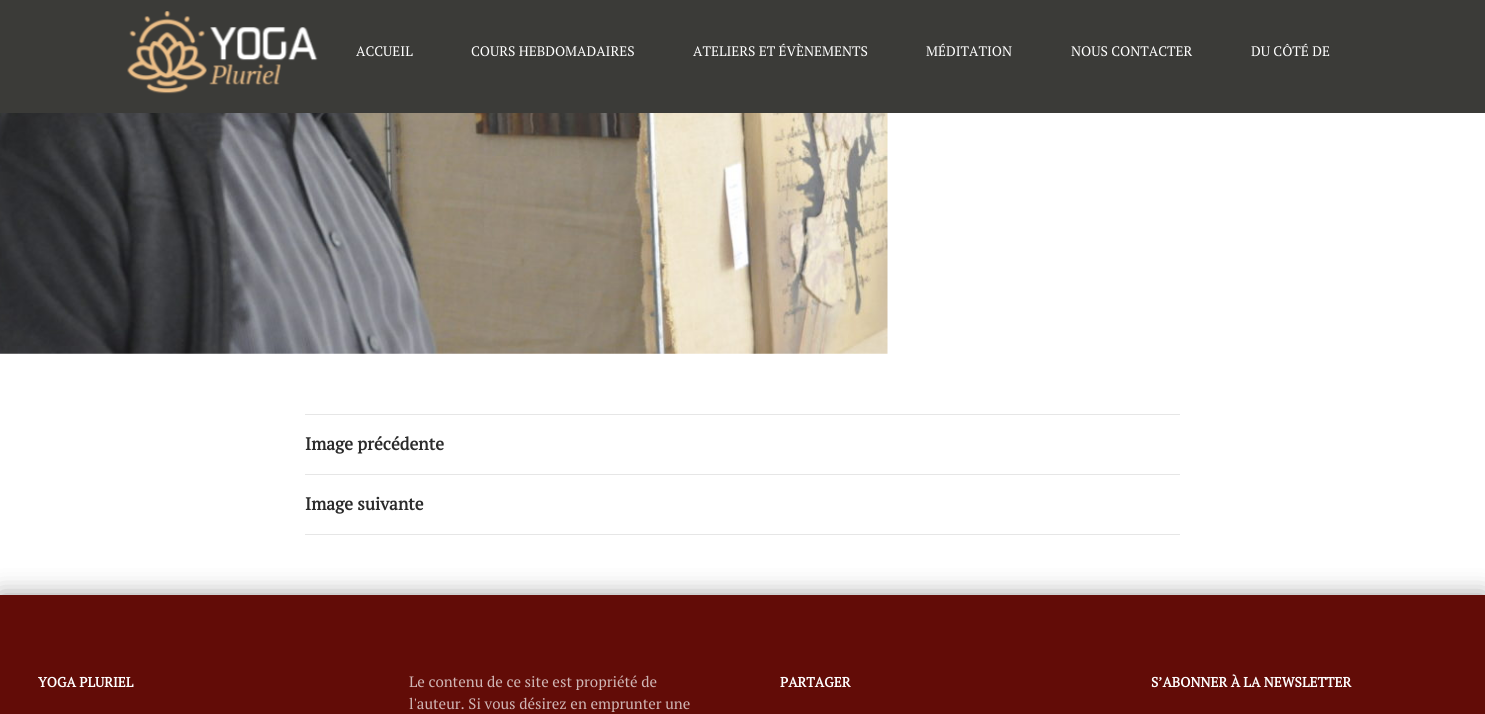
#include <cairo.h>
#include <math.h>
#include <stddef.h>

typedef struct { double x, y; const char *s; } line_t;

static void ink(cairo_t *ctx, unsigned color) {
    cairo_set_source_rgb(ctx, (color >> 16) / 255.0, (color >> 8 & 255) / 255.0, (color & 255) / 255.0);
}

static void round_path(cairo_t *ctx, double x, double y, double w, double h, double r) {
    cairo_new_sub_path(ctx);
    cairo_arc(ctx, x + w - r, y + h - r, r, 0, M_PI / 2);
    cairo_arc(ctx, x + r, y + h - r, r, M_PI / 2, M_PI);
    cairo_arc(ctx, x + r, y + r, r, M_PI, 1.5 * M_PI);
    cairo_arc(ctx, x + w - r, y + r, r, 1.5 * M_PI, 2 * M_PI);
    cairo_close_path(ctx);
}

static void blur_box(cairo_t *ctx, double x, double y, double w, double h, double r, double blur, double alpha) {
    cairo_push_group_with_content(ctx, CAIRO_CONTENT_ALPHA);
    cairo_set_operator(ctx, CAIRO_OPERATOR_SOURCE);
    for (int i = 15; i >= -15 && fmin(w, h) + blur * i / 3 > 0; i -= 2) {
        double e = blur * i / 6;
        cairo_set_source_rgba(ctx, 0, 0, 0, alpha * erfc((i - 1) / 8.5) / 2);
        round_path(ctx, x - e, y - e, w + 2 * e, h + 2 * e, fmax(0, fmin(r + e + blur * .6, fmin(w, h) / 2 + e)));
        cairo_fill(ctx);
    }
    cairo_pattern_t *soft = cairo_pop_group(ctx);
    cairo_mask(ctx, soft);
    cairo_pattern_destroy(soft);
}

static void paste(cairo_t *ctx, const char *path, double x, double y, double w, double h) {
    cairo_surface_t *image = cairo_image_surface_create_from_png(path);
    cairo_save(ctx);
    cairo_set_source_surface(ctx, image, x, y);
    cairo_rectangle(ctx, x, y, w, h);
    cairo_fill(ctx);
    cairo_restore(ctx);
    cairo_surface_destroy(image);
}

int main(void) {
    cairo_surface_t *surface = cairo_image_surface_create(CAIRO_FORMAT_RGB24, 1485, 714);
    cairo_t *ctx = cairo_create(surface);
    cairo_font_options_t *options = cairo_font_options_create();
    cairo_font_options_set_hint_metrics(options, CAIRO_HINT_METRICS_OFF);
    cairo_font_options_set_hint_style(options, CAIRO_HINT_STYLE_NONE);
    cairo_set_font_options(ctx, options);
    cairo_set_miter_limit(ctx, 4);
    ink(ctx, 0xFFFFFF);
    cairo_paint(ctx);
    ink(ctx, 0x3B3B38);
    cairo_rectangle(ctx, 0, 0, 1485, 113);
    cairo_fill(ctx);
    paste(ctx, "media/1.png", 127, 11, 191, 83);
    cairo_select_font_face(ctx, "PT Serif", CAIRO_FONT_SLANT_NORMAL, CAIRO_FONT_WEIGHT_NORMAL);
    cairo_set_font_size(ctx, 13.75);
    ink(ctx, 0xFFFFFF);
    {
        static const line_t items[] = {
            {356, 56, "ACCUEIL"},
            {471, 56, "COURS HEBDOMADAIRES"},
            {693, 56, "ATELIERS ET ÉVÈNEMENTS"},
            {926, 56, "MÉDITATION"},
            {1071, 56, "NOUS CONTACTER"},
            {1251, 56, "DU CÔTÉ DE"},
        };
        for (size_t i = 0; i < sizeof items / sizeof *items; i++) {
            cairo_move_to(ctx, items[i].x, items[i].y);
            cairo_show_text(ctx, items[i].s);
        }
    }
    paste(ctx, "media/2.png", 0, 113, 888, 241);
    ink(ctx, 0xE6E6E6);
    cairo_rectangle(ctx, 305, 414, 875, 1);
    cairo_fill(ctx);
    cairo_rectangle(ctx, 305, 474, 875, 1);
    cairo_fill(ctx);
    cairo_select_font_face(ctx, "PT Serif", CAIRO_FONT_SLANT_NORMAL, CAIRO_FONT_WEIGHT_BOLD);
    cairo_set_font_size(ctx, 17.5);
    ink(ctx, 0x2B2B2B);
    cairo_move_to(ctx, 305, 450);
    cairo_show_text(ctx, "Image précédente");
    ink(ctx, 0xE6E6E6);
    cairo_rectangle(ctx, 305, 534, 875, 1);
    cairo_fill(ctx);
    ink(ctx, 0x2B2B2B);
    cairo_move_to(ctx, 305, 510);
    cairo_show_text(ctx, "Image suivante");
    ink(ctx, 0x000000);
    blur_box(ctx, 0, 595, 1485, 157, 0, 12.5, 0.37);
    ink(ctx, 0x620C07);
    cairo_rectangle(ctx, 0, 595, 1485, 119);
    cairo_fill(ctx);
    cairo_set_font_size(ctx, 13.75);
    ink(ctx, 0xFFFFFF);
    cairo_move_to(ctx, 38, 687);
    cairo_show_text(ctx, "YOGA PLURIEL");
    cairo_select_font_face(ctx, "PT Serif", CAIRO_FONT_SLANT_NORMAL, CAIRO_FONT_WEIGHT_NORMAL);
    cairo_set_font_size(ctx, 15);
    ink(ctx, 0xD0B6B5);
    cairo_move_to(ctx, 409, 687);
    cairo_show_text(ctx, "Le contenu de ce site est propriété de");
    cairo_move_to(ctx, 409, 709);
    cairo_show_text(ctx, "l'auteur. Si vous désirez en emprunter une");
    cairo_select_font_face(ctx, "PT Serif", CAIRO_FONT_SLANT_NORMAL, CAIRO_FONT_WEIGHT_BOLD);
    cairo_set_font_size(ctx, 13.75);
    ink(ctx, 0xFFFFFF);
    cairo_move_to(ctx, 780, 687);
    cairo_show_text(ctx, "PARTAGER");
    cairo_move_to(ctx, 1151, 687);
    cairo_show_text(ctx, "S’ABONNER À LA NEWSLETTER");
    cairo_surface_write_to_png(surface, "image.png");
    cairo_font_options_destroy(options);
    cairo_destroy(ctx);
    cairo_surface_destroy(surface);
    return 0;
}
